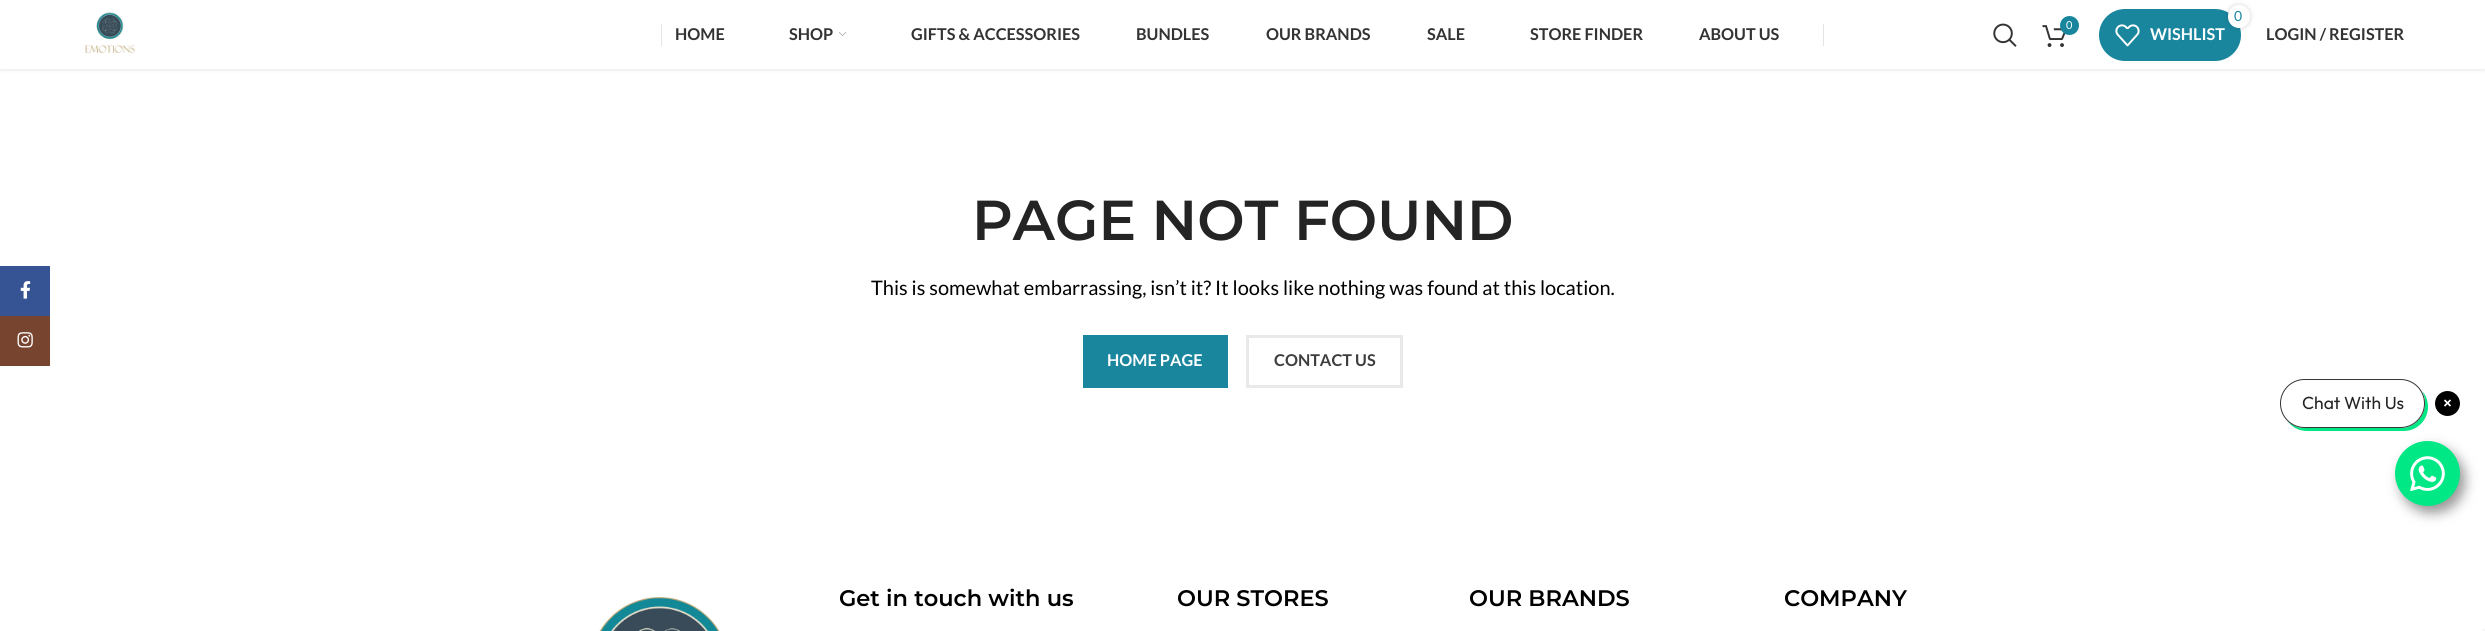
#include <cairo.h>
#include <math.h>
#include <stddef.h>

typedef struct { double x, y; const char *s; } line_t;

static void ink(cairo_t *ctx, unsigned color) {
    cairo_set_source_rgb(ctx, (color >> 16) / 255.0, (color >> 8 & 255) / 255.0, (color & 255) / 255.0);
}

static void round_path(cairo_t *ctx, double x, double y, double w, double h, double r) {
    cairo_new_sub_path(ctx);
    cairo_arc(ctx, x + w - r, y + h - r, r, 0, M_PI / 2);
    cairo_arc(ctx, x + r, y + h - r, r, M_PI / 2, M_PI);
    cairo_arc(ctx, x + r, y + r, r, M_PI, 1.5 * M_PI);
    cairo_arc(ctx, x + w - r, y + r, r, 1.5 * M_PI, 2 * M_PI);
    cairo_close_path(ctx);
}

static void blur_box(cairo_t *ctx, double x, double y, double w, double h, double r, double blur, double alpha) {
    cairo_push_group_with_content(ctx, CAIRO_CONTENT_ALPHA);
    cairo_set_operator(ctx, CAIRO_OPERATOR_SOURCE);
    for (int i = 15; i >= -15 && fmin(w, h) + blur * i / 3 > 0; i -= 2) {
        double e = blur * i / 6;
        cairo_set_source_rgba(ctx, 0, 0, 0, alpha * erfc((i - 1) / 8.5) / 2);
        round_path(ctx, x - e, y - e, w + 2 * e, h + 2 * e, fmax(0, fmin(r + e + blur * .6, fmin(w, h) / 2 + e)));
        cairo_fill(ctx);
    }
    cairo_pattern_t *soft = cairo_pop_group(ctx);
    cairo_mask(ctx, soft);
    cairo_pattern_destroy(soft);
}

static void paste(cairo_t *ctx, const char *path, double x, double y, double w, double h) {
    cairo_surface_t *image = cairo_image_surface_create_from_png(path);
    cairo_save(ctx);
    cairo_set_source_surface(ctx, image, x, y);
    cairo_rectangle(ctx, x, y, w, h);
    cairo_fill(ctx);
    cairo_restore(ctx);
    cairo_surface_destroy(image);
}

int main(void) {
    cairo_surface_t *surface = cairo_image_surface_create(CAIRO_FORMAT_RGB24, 2485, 631);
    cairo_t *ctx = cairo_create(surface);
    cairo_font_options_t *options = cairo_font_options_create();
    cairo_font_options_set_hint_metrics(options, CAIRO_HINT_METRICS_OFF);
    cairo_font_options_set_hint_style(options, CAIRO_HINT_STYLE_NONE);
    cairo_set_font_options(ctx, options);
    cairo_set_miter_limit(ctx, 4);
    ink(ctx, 0xFFFFFF);
    cairo_paint(ctx);
    ink(ctx, 0x365493);
    cairo_rectangle(ctx, 0, 266, 50, 50);
    cairo_fill(ctx);
    paste(ctx, "media/1.png", 20, 281, 11, 18);
    ink(ctx, 0x774430);
    cairo_rectangle(ctx, 0, 316, 50, 50);
    cairo_fill(ctx);
    paste(ctx, "media/2.png", 17, 332, 16, 16);
    ink(ctx, 0x000000);
    blur_box(ctx, 0, 1, 2485, 69, 0, 2, 0.1);
    ink(ctx, 0xFFFFFF);
    cairo_rectangle(ctx, 0, 0, 2485, 69);
    cairo_fill(ctx);
    paste(ctx, "media/3.png", 85, 12, 50, 41);
    ink(ctx, 0xE4E4E4);
    cairo_rectangle(ctx, 661, 24, 1, 22);
    cairo_fill(ctx);
    cairo_select_font_face(ctx, "Lato", CAIRO_FONT_SLANT_NORMAL, CAIRO_FONT_WEIGHT_BOLD);
    cairo_set_font_size(ctx, 16.25);
    ink(ctx, 0x333333);
    cairo_move_to(ctx, 675, 40);
    cairo_show_text(ctx, "HOME");
    cairo_move_to(ctx, 789, 40);
    cairo_show_text(ctx, "SHOP");
    paste(ctx, "media/4.png", 838, 32, 9, 4);
    {
        static const line_t items[] = {
            {911, 40, "GIFTS & ACCESSORIES"},
            {1136, 40, "BUNDLES"},
            {1266, 40, "OUR BRANDS"},
            {1427, 40, "SALE"},
            {1530, 40, "STORE FINDER"},
            {1699, 40, "ABOUT US"},
        };
        for (size_t i = 0; i < sizeof items / sizeof *items; i++) {
            cairo_move_to(ctx, items[i].x, items[i].y);
            cairo_show_text(ctx, items[i].s);
        }
    }
    ink(ctx, 0xE4E4E4);
    cairo_rectangle(ctx, 1823, 24, 1, 22);
    cairo_fill(ctx);
    paste(ctx, "media/5.png", 1993, 23, 24, 24);
    paste(ctx, "media/6.png", 2042, 25, 24, 22);
    ink(ctx, 0x19869E);
    cairo_arc(ctx, 2069.5, 25.5, 9.5, 0, 2 * M_PI);
    cairo_fill(ctx);
    cairo_select_font_face(ctx, "Lato", CAIRO_FONT_SLANT_NORMAL, CAIRO_FONT_WEIGHT_NORMAL);
    cairo_set_font_size(ctx, 11);
    ink(ctx, 0xFFFFFF);
    cairo_move_to(ctx, 2066, 29);
    cairo_show_text(ctx, "0");
    ink(ctx, 0x19869E);
    round_path(ctx, 2099, 9, 142, 52, 26);
    cairo_fill(ctx);
    ink(ctx, 0x000000);
    blur_box(ctx, 2228, 5, 22, 23, 11, 2.5, 0.17);
    ink(ctx, 0xFFFFFF);
    round_path(ctx, 2228, 5, 22, 23, 11);
    cairo_fill(ctx);
    cairo_set_font_size(ctx, 14);
    ink(ctx, 0x19869E);
    cairo_move_to(ctx, 2234, 21);
    cairo_show_text(ctx, "0");
    paste(ctx, "media/7.png", 2115, 24, 25, 23);
    cairo_select_font_face(ctx, "Lato", CAIRO_FONT_SLANT_NORMAL, CAIRO_FONT_WEIGHT_BOLD);
    cairo_set_font_size(ctx, 16.25);
    ink(ctx, 0xFFFFFF);
    cairo_move_to(ctx, 2150, 40);
    cairo_show_text(ctx, "WISHLIST");
    ink(ctx, 0x333333);
    cairo_move_to(ctx, 2266, 40);
    cairo_show_text(ctx, "LOGIN / REGISTER");
    cairo_select_font_face(ctx, "Montserrat SemiBold", CAIRO_FONT_SLANT_NORMAL, CAIRO_FONT_WEIGHT_NORMAL);
    cairo_set_font_size(ctx, 56.25);
    ink(ctx, 0x242424);
    cairo_move_to(ctx, 972, 240);
    cairo_show_text(ctx, "PAGE NOT FOUND");
    cairo_select_font_face(ctx, "Lato", CAIRO_FONT_SLANT_NORMAL, CAIRO_FONT_WEIGHT_NORMAL);
    cairo_set_font_size(ctx, 20);
    ink(ctx, 0x000000);
    cairo_move_to(ctx, 871, 295);
    cairo_show_text(ctx, "This is somewhat embarrassing, isn’t it? It looks like nothing was found at this location.");
    ink(ctx, 0x19869E);
    cairo_rectangle(ctx, 1083, 335, 145, 53);
    cairo_fill(ctx);
    cairo_select_font_face(ctx, "Lato", CAIRO_FONT_SLANT_NORMAL, CAIRO_FONT_WEIGHT_BOLD);
    cairo_set_font_size(ctx, 16.25);
    ink(ctx, 0xFFFFFF);
    cairo_move_to(ctx, 1107, 366);
    cairo_show_text(ctx, "HOME PAGE");
    cairo_rectangle(ctx, 1247.5, 336.5, 154, 50);
    ink(ctx, 0xE9E9E9);
    cairo_set_line_width(ctx, 3);
    cairo_stroke(ctx);
    ink(ctx, 0x3E3E3E);
    cairo_move_to(ctx, 1274, 366);
    cairo_show_text(ctx, "CONTACT US");
    paste(ctx, "media/8.png", 599, 597, 121, 34);
    cairo_select_font_face(ctx, "Montserrat SemiBold", CAIRO_FONT_SLANT_NORMAL, CAIRO_FONT_WEIGHT_NORMAL);
    cairo_set_font_size(ctx, 22.5);
    ink(ctx, 0x000000);
    {
        static const line_t items[] = {
            {839, 606, "Get in touch with us"},
            {1177, 606, "OUR STORES"},
            {1469, 606, "OUR BRANDS"},
            {1784, 606, "COMPANY"},
        };
        for (size_t i = 0; i < sizeof items / sizeof *items; i++) {
            cairo_move_to(ctx, items[i].x, items[i].y);
            cairo_show_text(ctx, items[i].s);
        }
    }
    ink(ctx, 0x000000);
    blur_box(ctx, 2400, 448, 65, 65, 32.5, 6, 0.4);
    ink(ctx, 0x00E785);
    cairo_new_path(ctx);
    cairo_move_to(ctx, 2287, 420);
    cairo_curve_to(ctx, 2291, 427, 2299, 431, 2307, 431);
    cairo_line_to(ctx, 2404, 431);
    cairo_curve_to(ctx, 2417, 431, 2428, 420, 2428, 407);
    cairo_curve_to(ctx, 2428, 401, 2426, 395, 2422, 391);
    cairo_curve_to(ctx, 2424, 394, 2425, 399, 2425, 403);
    cairo_curve_to(ctx, 2425, 417, 2414, 428, 2401, 428);
    cairo_line_to(ctx, 2304, 428);
    cairo_curve_to(ctx, 2298, 428, 2291, 425, 2287, 420);
    cairo_close_path(ctx);
    cairo_fill(ctx);
    ink(ctx, 0xFFFFFF);
    round_path(ctx, 2280.5, 379.5, 144, 48, 24);
    cairo_fill_preserve(ctx);
    ink(ctx, 0x363636);
    cairo_set_line_width(ctx, 1);
    cairo_stroke(ctx);
    cairo_select_font_face(ctx, "Outfit", CAIRO_FONT_SLANT_NORMAL, CAIRO_FONT_WEIGHT_NORMAL);
    cairo_set_font_size(ctx, 17.5);
    ink(ctx, 0x242424);
    cairo_move_to(ctx, 2302, 409);
    cairo_show_text(ctx, "Chat With Us");
    ink(ctx, 0x000000);
    cairo_new_path(ctx);
    cairo_arc(ctx, 2447.5, 403.5, 12.5, 0, 2 * M_PI);
    cairo_fill(ctx);
    cairo_new_path(ctx);
    cairo_move_to(ctx, 2444.5, 400);
    cairo_line_to(ctx, 2450.5, 406);
    cairo_move_to(ctx, 2444.5, 406);
    cairo_line_to(ctx, 2450.5, 400);
    ink(ctx, 0xFFFFFF);
    cairo_set_line_width(ctx, 1.7);
    cairo_stroke(ctx);
    ink(ctx, 0x00E785);
    cairo_arc(ctx, 2427.5, 473.5, 32.5, 0, 2 * M_PI);
    cairo_fill(ctx);
    paste(ctx, "media/9.png", 2410, 456, 35, 35);
    ink(ctx, 0xF5F5F5);
    cairo_rectangle(ctx, 2483, 629, 2, 2);
    cairo_fill(ctx);
    cairo_surface_write_to_png(surface, "image.png");
    cairo_font_options_destroy(options);
    cairo_destroy(ctx);
    cairo_surface_destroy(surface);
    return 0;
}
